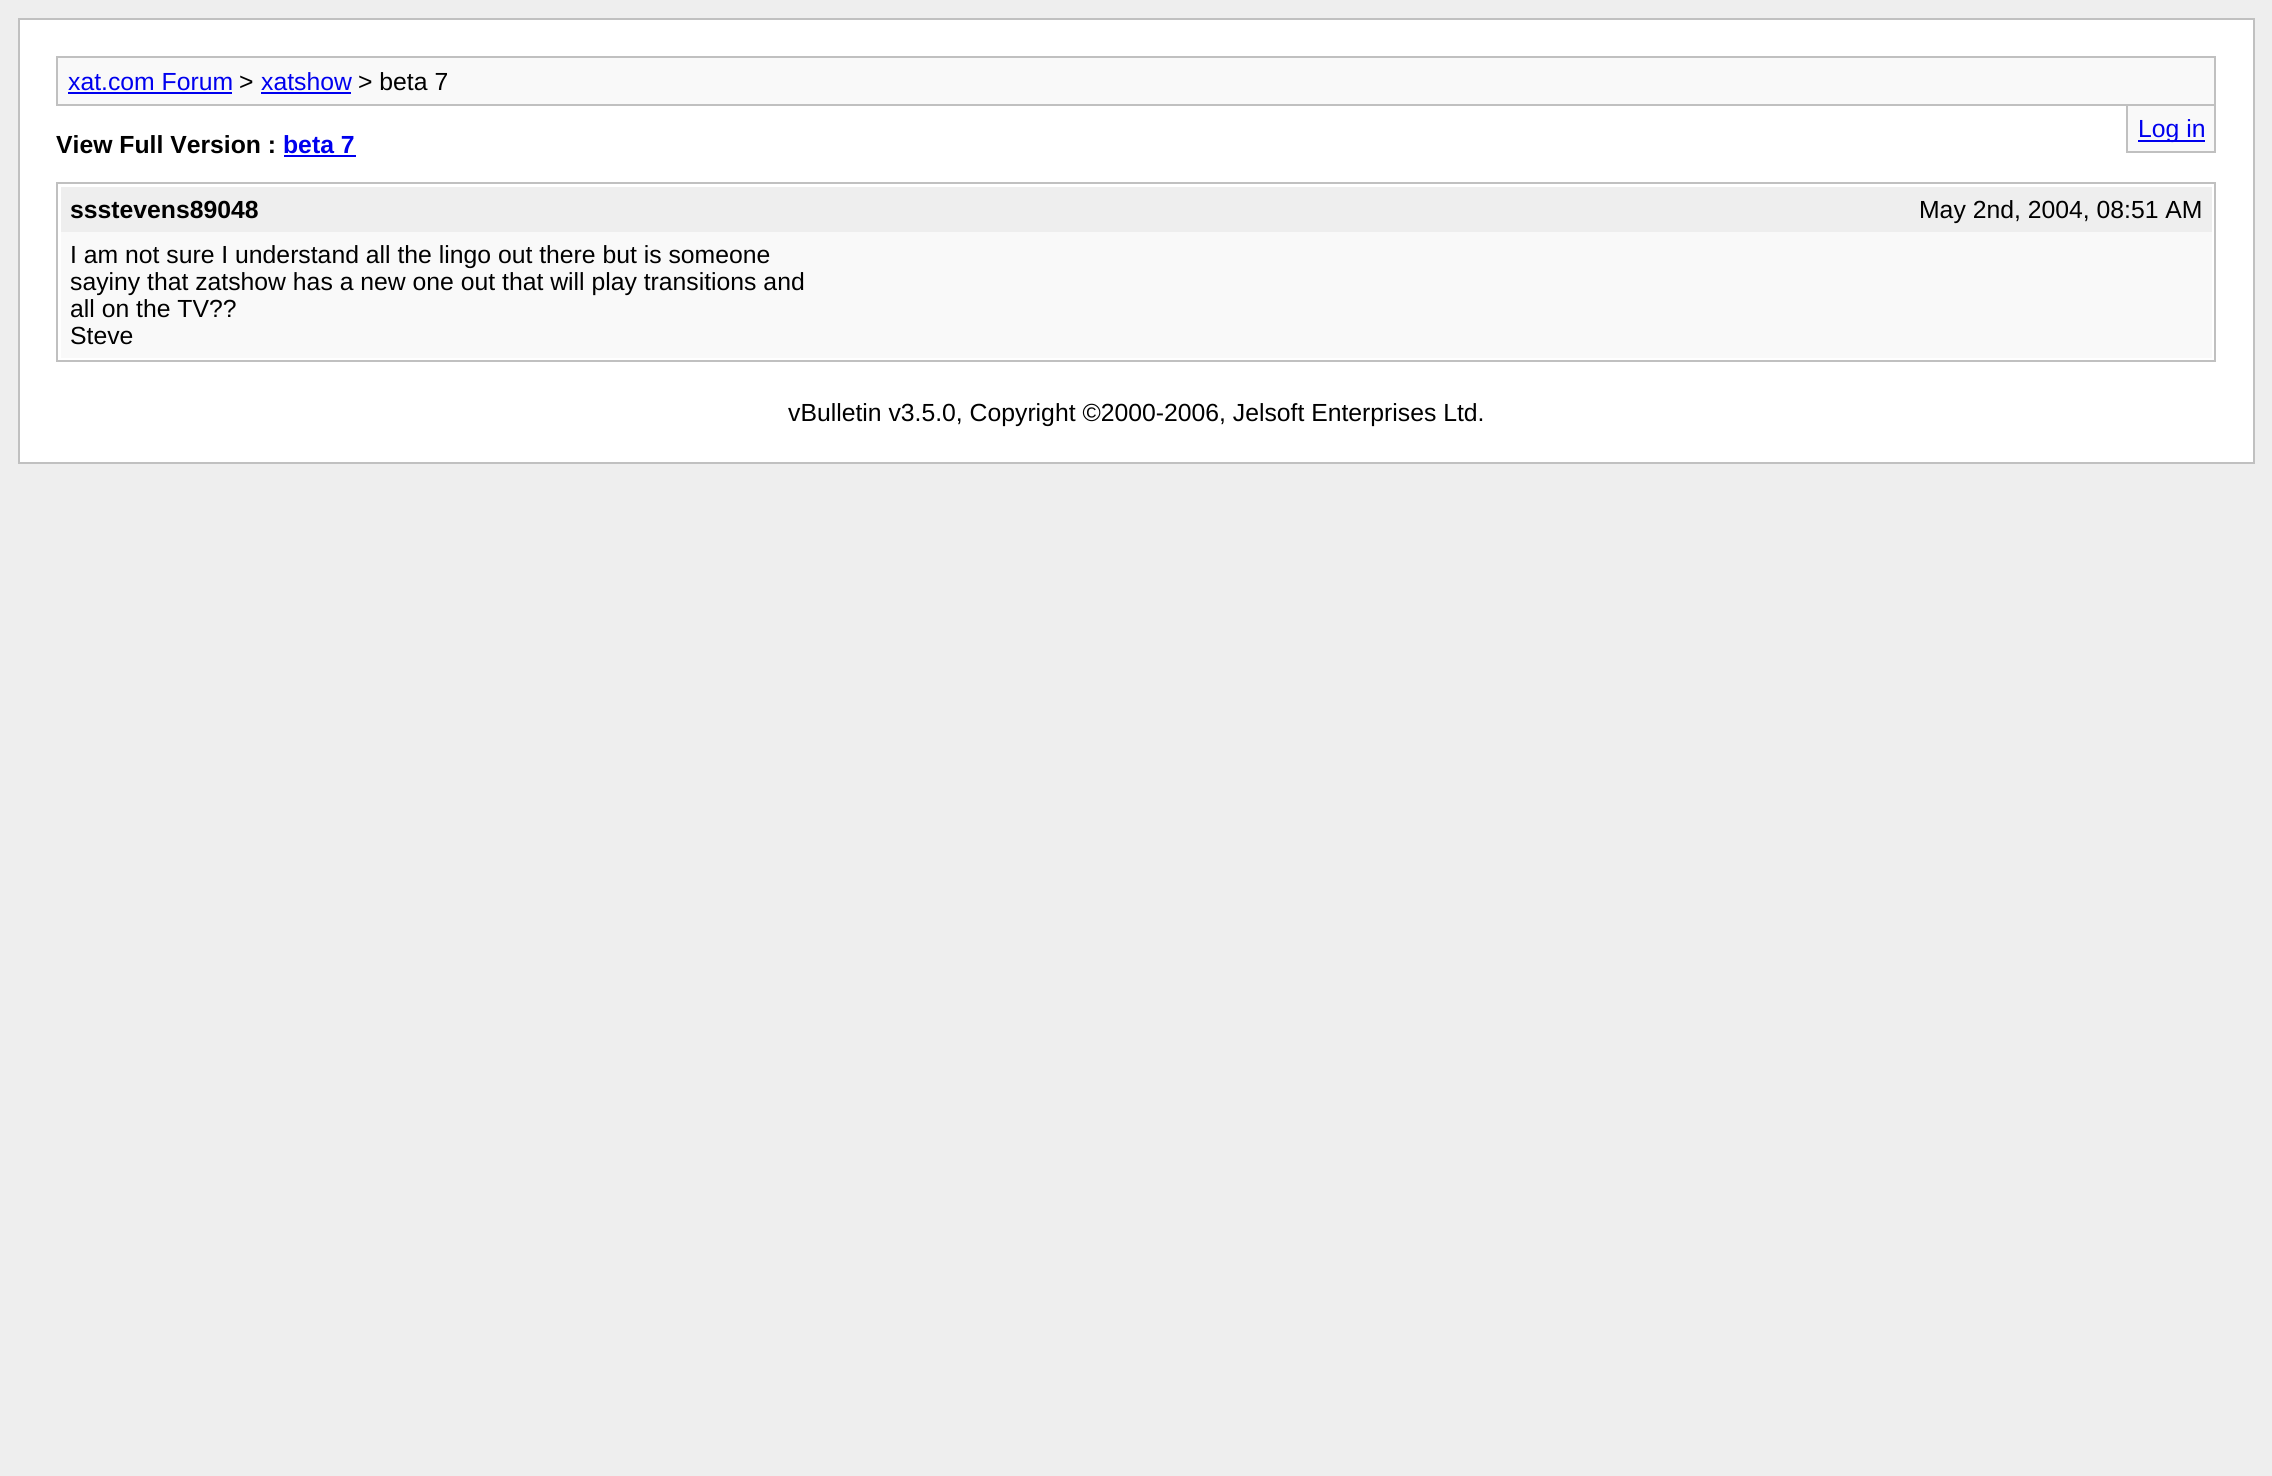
#include <cairo.h>
#include <math.h>
#include <stddef.h>

typedef struct { double x, y; const char *s; } line_t;
typedef struct { double x, y, w, h; unsigned color; } box_t;

static void ink(cairo_t *ctx, unsigned color) {
    cairo_set_source_rgb(ctx, (color >> 16) / 255.0, (color >> 8 & 255) / 255.0, (color & 255) / 255.0);
}

int main(void) {
    cairo_surface_t *surface = cairo_image_surface_create(CAIRO_FORMAT_RGB24, 2272, 1476);
    cairo_t *ctx = cairo_create(surface);
    cairo_font_options_t *options = cairo_font_options_create();
    cairo_font_options_set_hint_metrics(options, CAIRO_HINT_METRICS_OFF);
    cairo_font_options_set_hint_style(options, CAIRO_HINT_STYLE_NONE);
    cairo_set_font_options(ctx, options);
    cairo_set_miter_limit(ctx, 4);
    ink(ctx, 0xEEEEEE);
    cairo_paint(ctx);
    ink(ctx, 0xFFFFFF);
    cairo_rectangle(ctx, 19, 19, 2235, 444);
    cairo_fill_preserve(ctx);
    ink(ctx, 0xC0C0C0);
    cairo_stroke(ctx);
    ink(ctx, 0xF9F9F9);
    cairo_rectangle(ctx, 57, 57, 2158, 48);
    cairo_fill_preserve(ctx);
    ink(ctx, 0xC0C0C0);
    cairo_stroke(ctx);
    cairo_select_font_face(ctx, "Liberation Sans", CAIRO_FONT_SLANT_NORMAL, CAIRO_FONT_WEIGHT_NORMAL);
    cairo_set_font_size(ctx, 24.75);
    ink(ctx, 0x0000EE);
    cairo_move_to(ctx, 68, 90);
    cairo_show_text(ctx, "xat.com Forum");
    cairo_rectangle(ctx, 68, 92, 164, 2);
    cairo_fill(ctx);
    ink(ctx, 0x000000);
    cairo_move_to(ctx, 239, 90);
    cairo_show_text(ctx, ">");
    ink(ctx, 0x0000EE);
    cairo_move_to(ctx, 261, 90);
    cairo_show_text(ctx, "xatshow");
    cairo_rectangle(ctx, 261, 92, 90, 2);
    cairo_fill(ctx);
    ink(ctx, 0x000000);
    cairo_move_to(ctx, 358, 90);
    cairo_show_text(ctx, "> beta 7");
    cairo_select_font_face(ctx, "Liberation Sans", CAIRO_FONT_SLANT_NORMAL, CAIRO_FONT_WEIGHT_BOLD);
    cairo_move_to(ctx, 56, 153);
    cairo_show_text(ctx, "View Full Version :");
    ink(ctx, 0x0000EE);
    cairo_move_to(ctx, 283, 153);
    cairo_show_text(ctx, "beta 7");
    {
        static const box_t items[] = {
            {284, 155, 72, 2, 0x0000EE},
            {2128, 106, 86, 45, 0xF9F9F9},
            {2214, 106, 2, 47, 0xC0C0C0},
            {2126, 151, 90, 2, 0xC0C0C0},
            {2126, 106, 2, 47, 0xC0C0C0},
            {2138, 140, 67, 2, 0x0000EE},
        };
        for (size_t i = 0; i < sizeof items / sizeof *items; i++) {
            ink(ctx, items[i].color);
            cairo_rectangle(ctx, items[i].x, items[i].y, items[i].w, items[i].h);
            cairo_fill(ctx);
        }
    }
    cairo_select_font_face(ctx, "Liberation Sans", CAIRO_FONT_SLANT_NORMAL, CAIRO_FONT_WEIGHT_NORMAL);
    cairo_move_to(ctx, 2138, 137);
    cairo_show_text(ctx, "Log in");
    cairo_rectangle(ctx, 57, 183, 2158, 178);
    ink(ctx, 0xC0C0C0);
    cairo_stroke(ctx);
    ink(ctx, 0xEEEEEE);
    cairo_rectangle(ctx, 61, 187, 2151, 45);
    cairo_fill(ctx);
    cairo_select_font_face(ctx, "Liberation Sans", CAIRO_FONT_SLANT_NORMAL, CAIRO_FONT_WEIGHT_BOLD);
    ink(ctx, 0x000000);
    cairo_move_to(ctx, 70, 218);
    cairo_show_text(ctx, "ssstevens89048");
    cairo_select_font_face(ctx, "Liberation Sans", CAIRO_FONT_SLANT_NORMAL, CAIRO_FONT_WEIGHT_NORMAL);
    cairo_move_to(ctx, 1919, 218);
    cairo_show_text(ctx, "May 2nd, 2004, 08:51 AM");
    ink(ctx, 0xF9F9F9);
    cairo_rectangle(ctx, 61, 232, 2151, 126);
    cairo_fill(ctx);
    ink(ctx, 0x000000);
    {
        static const line_t items[] = {
            {70, 263, "I am not sure I understand all the lingo out there but is someone"},
            {70, 290, "sayiny that zatshow has a new one out that will play transitions and"},
            {70, 317, "all on the TV?\077"},
            {70, 344, "Steve"},
            {788, 421, "vBulletin v3.5.0, Copyright ©2000-2006, Jelsoft Enterprises Ltd."},
        };
        for (size_t i = 0; i < sizeof items / sizeof *items; i++) {
            cairo_move_to(ctx, items[i].x, items[i].y);
            cairo_show_text(ctx, items[i].s);
        }
    }
    cairo_surface_write_to_png(surface, "image.png");
    cairo_font_options_destroy(options);
    cairo_destroy(ctx);
    cairo_surface_destroy(surface);
    return 0;
}
